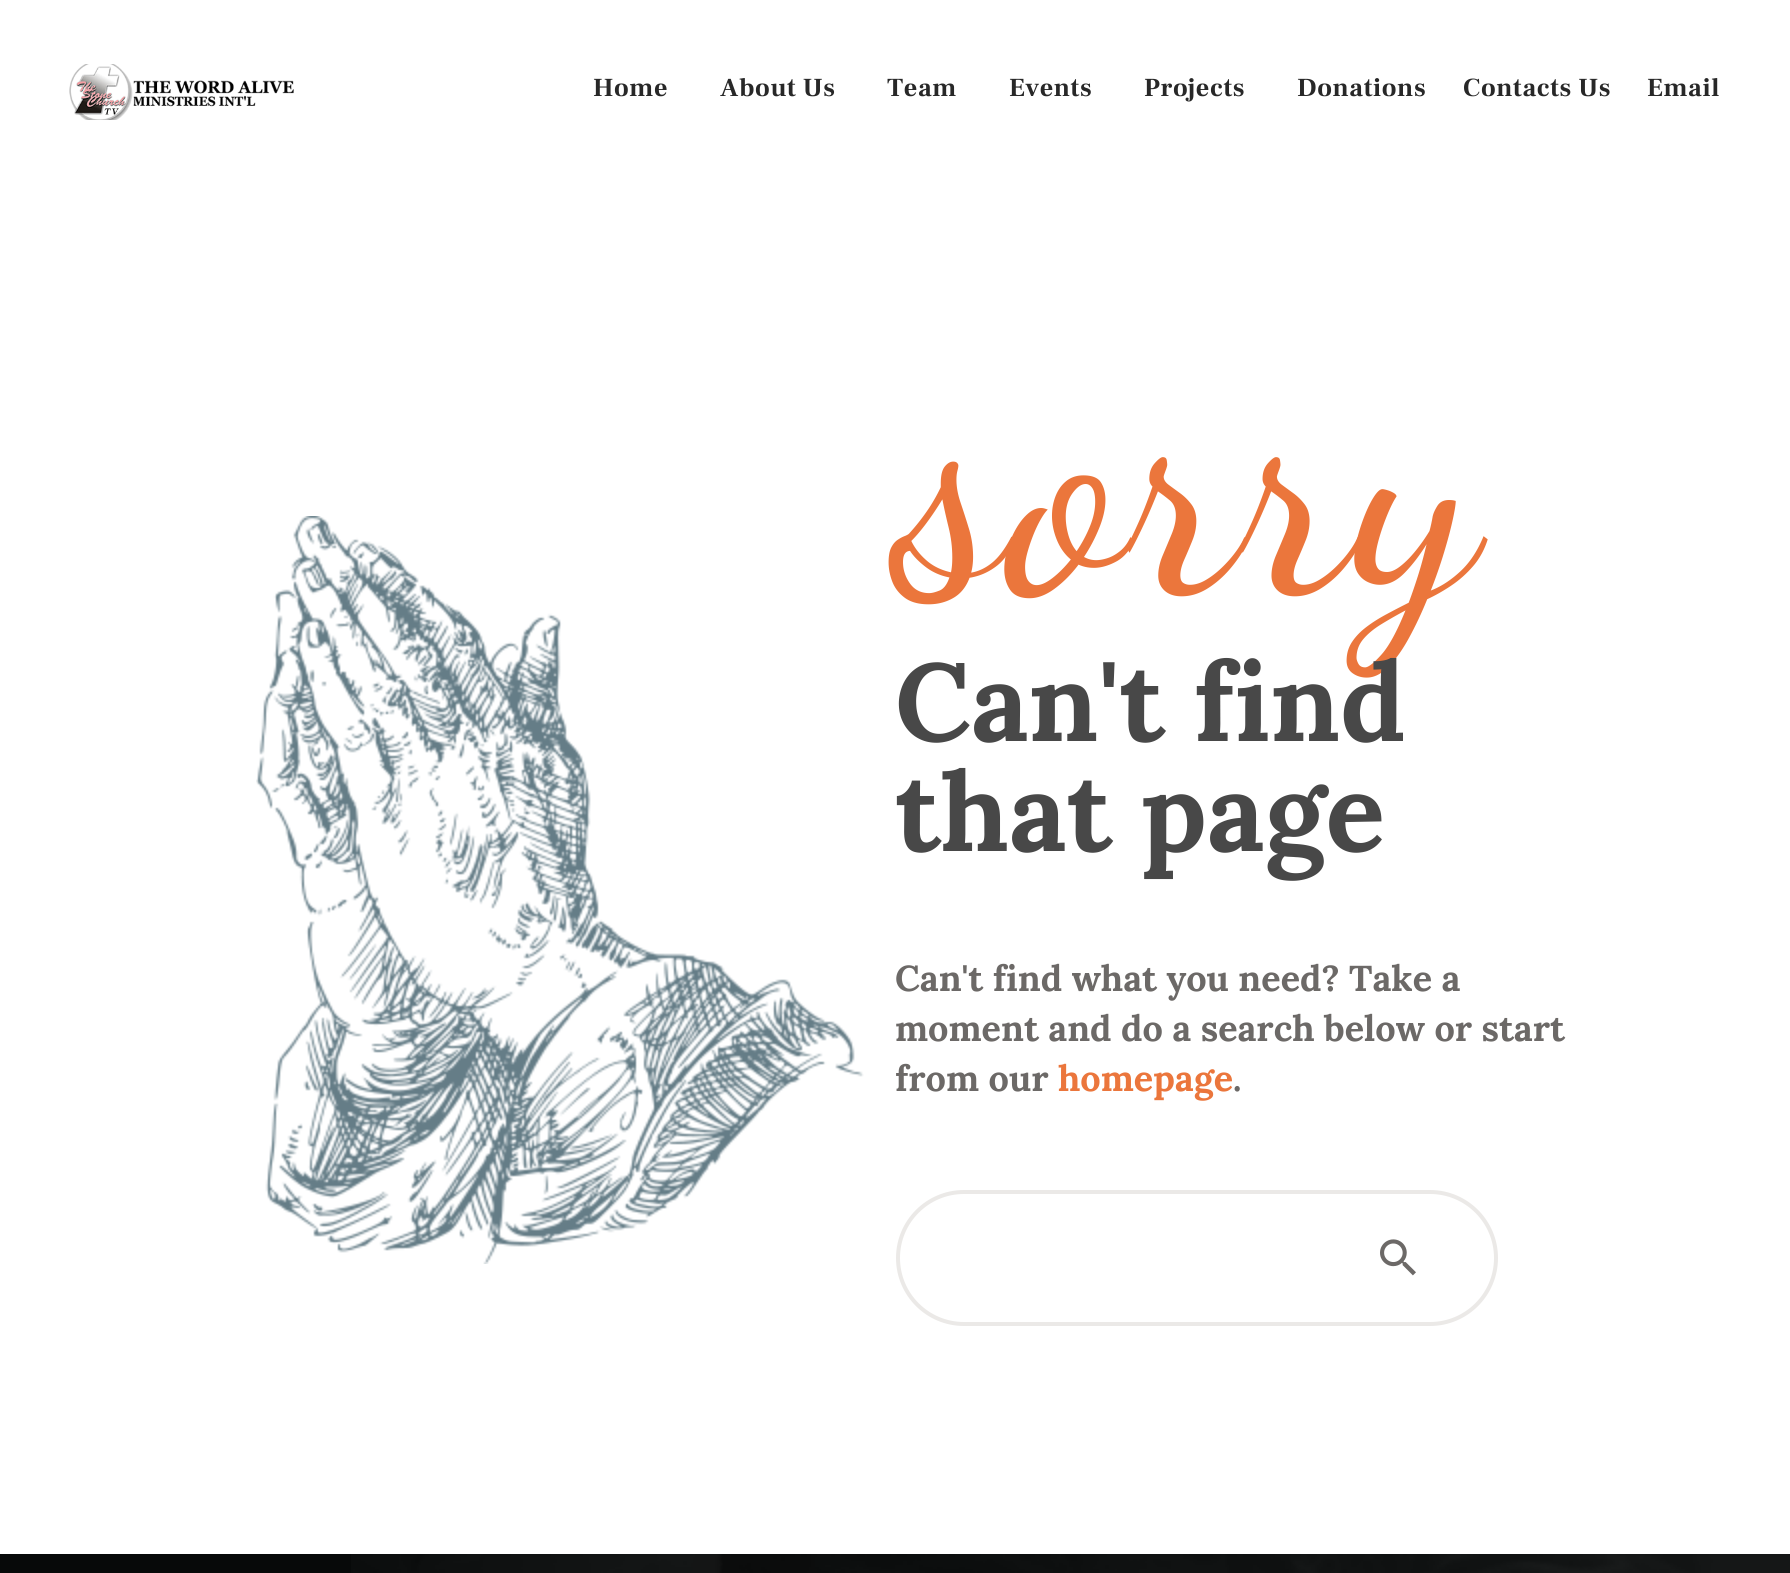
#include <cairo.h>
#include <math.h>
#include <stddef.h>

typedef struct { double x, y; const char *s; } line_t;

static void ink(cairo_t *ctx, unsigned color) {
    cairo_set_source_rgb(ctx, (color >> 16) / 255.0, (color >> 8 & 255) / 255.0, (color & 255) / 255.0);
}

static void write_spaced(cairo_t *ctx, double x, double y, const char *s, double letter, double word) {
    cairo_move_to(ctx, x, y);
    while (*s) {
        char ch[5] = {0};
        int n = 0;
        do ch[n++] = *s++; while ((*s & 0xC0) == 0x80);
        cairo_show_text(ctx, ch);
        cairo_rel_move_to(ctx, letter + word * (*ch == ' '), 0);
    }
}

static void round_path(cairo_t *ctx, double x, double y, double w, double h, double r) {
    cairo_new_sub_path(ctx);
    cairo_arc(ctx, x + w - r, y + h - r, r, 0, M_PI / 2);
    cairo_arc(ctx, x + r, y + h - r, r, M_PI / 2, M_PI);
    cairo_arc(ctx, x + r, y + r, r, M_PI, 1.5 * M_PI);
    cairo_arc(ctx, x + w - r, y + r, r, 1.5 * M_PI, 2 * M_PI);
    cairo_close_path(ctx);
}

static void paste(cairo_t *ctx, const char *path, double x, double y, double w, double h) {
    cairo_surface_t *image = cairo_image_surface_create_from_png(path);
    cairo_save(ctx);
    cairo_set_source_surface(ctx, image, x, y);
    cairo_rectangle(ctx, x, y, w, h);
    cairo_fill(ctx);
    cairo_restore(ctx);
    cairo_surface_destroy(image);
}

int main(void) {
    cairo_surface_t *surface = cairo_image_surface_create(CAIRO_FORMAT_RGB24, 1790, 1573);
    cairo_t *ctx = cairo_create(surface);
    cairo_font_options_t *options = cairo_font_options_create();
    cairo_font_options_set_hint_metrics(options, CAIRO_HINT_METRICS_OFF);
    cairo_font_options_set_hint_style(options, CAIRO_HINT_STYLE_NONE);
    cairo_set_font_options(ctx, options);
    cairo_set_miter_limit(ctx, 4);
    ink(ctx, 0xFFFFFF);
    cairo_paint(ctx);
    paste(ctx, "media/1.png", 69, 64, 225, 56);
    cairo_select_font_face(ctx, "Frank Ruhl Libre", CAIRO_FONT_SLANT_NORMAL, CAIRO_FONT_WEIGHT_BOLD);
    cairo_set_font_size(ctx, 26);
    ink(ctx, 0x282828);
    {
        static const line_t items[] = {
            {593, 96, "Home"},
            {720, 96, "About Us"},
            {887, 96, "Team"},
            {1009, 96, "Events"},
            {1144, 96, "Projects"},
            {1297, 96, "Donations"},
            {1463, 96, "Contacts Us"},
            {1647, 96, "Email"},
        };
        for (size_t i = 0; i < sizeof items / sizeof *items; i++) {
            write_spaced(ctx, items[i].x, items[i].y, items[i].s, 0.6, 0);
        }
    }
    paste(ctx, "media/2.png", 256, 516, 608, 748);
    cairo_select_font_face(ctx, "Dancing Script", CAIRO_FONT_SLANT_NORMAL, CAIRO_FONT_WEIGHT_NORMAL);
    cairo_set_font_size(ctx, 320);
    ink(ctx, 0xEB763C);
    write_spaced(ctx, 895, 588, "sorry", 2, 0);
    cairo_select_font_face(ctx, "Lora", CAIRO_FONT_SLANT_NORMAL, CAIRO_FONT_WEIGHT_BOLD);
    cairo_set_font_size(ctx, 110);
    ink(ctx, 0x484848);
    cairo_move_to(ctx, 895, 741);
    cairo_show_text(ctx, "Can't find");
    cairo_move_to(ctx, 895, 851);
    cairo_show_text(ctx, "that page");
    cairo_set_font_size(ctx, 36);
    ink(ctx, 0x6C6967);
    {
        static const line_t items[] = {
            {895, 991, "Can't find what you need? Take a"},
            {895, 1041, "moment and do a search below or start"},
            {895, 1091, "from our"},
        };
        for (size_t i = 0; i < sizeof items / sizeof *items; i++) {
            cairo_move_to(ctx, items[i].x, items[i].y);
            cairo_show_text(ctx, items[i].s);
        }
    }
    ink(ctx, 0xEB763C);
    cairo_move_to(ctx, 1058, 1091);
    cairo_show_text(ctx, "homepage");
    ink(ctx, 0x6C6967);
    cairo_move_to(ctx, 1233, 1091);
    cairo_show_text(ctx, ".");
    round_path(ctx, 898, 1192, 598, 132, 66);
    ink(ctx, 0xEBE9E7);
    cairo_set_line_width(ctx, 4);
    cairo_stroke(ctx);
    paste(ctx, "media/3.png", 1380, 1239, 36, 37);
    ink(ctx, 0x070909);
    cairo_rectangle(ctx, 0, 1554, 1790, 19);
    cairo_fill(ctx);
    paste(ctx, "media/4.png", 351, 1554, 1439, 19);
    cairo_surface_write_to_png(surface, "image.png");
    cairo_font_options_destroy(options);
    cairo_destroy(ctx);
    cairo_surface_destroy(surface);
    return 0;
}
